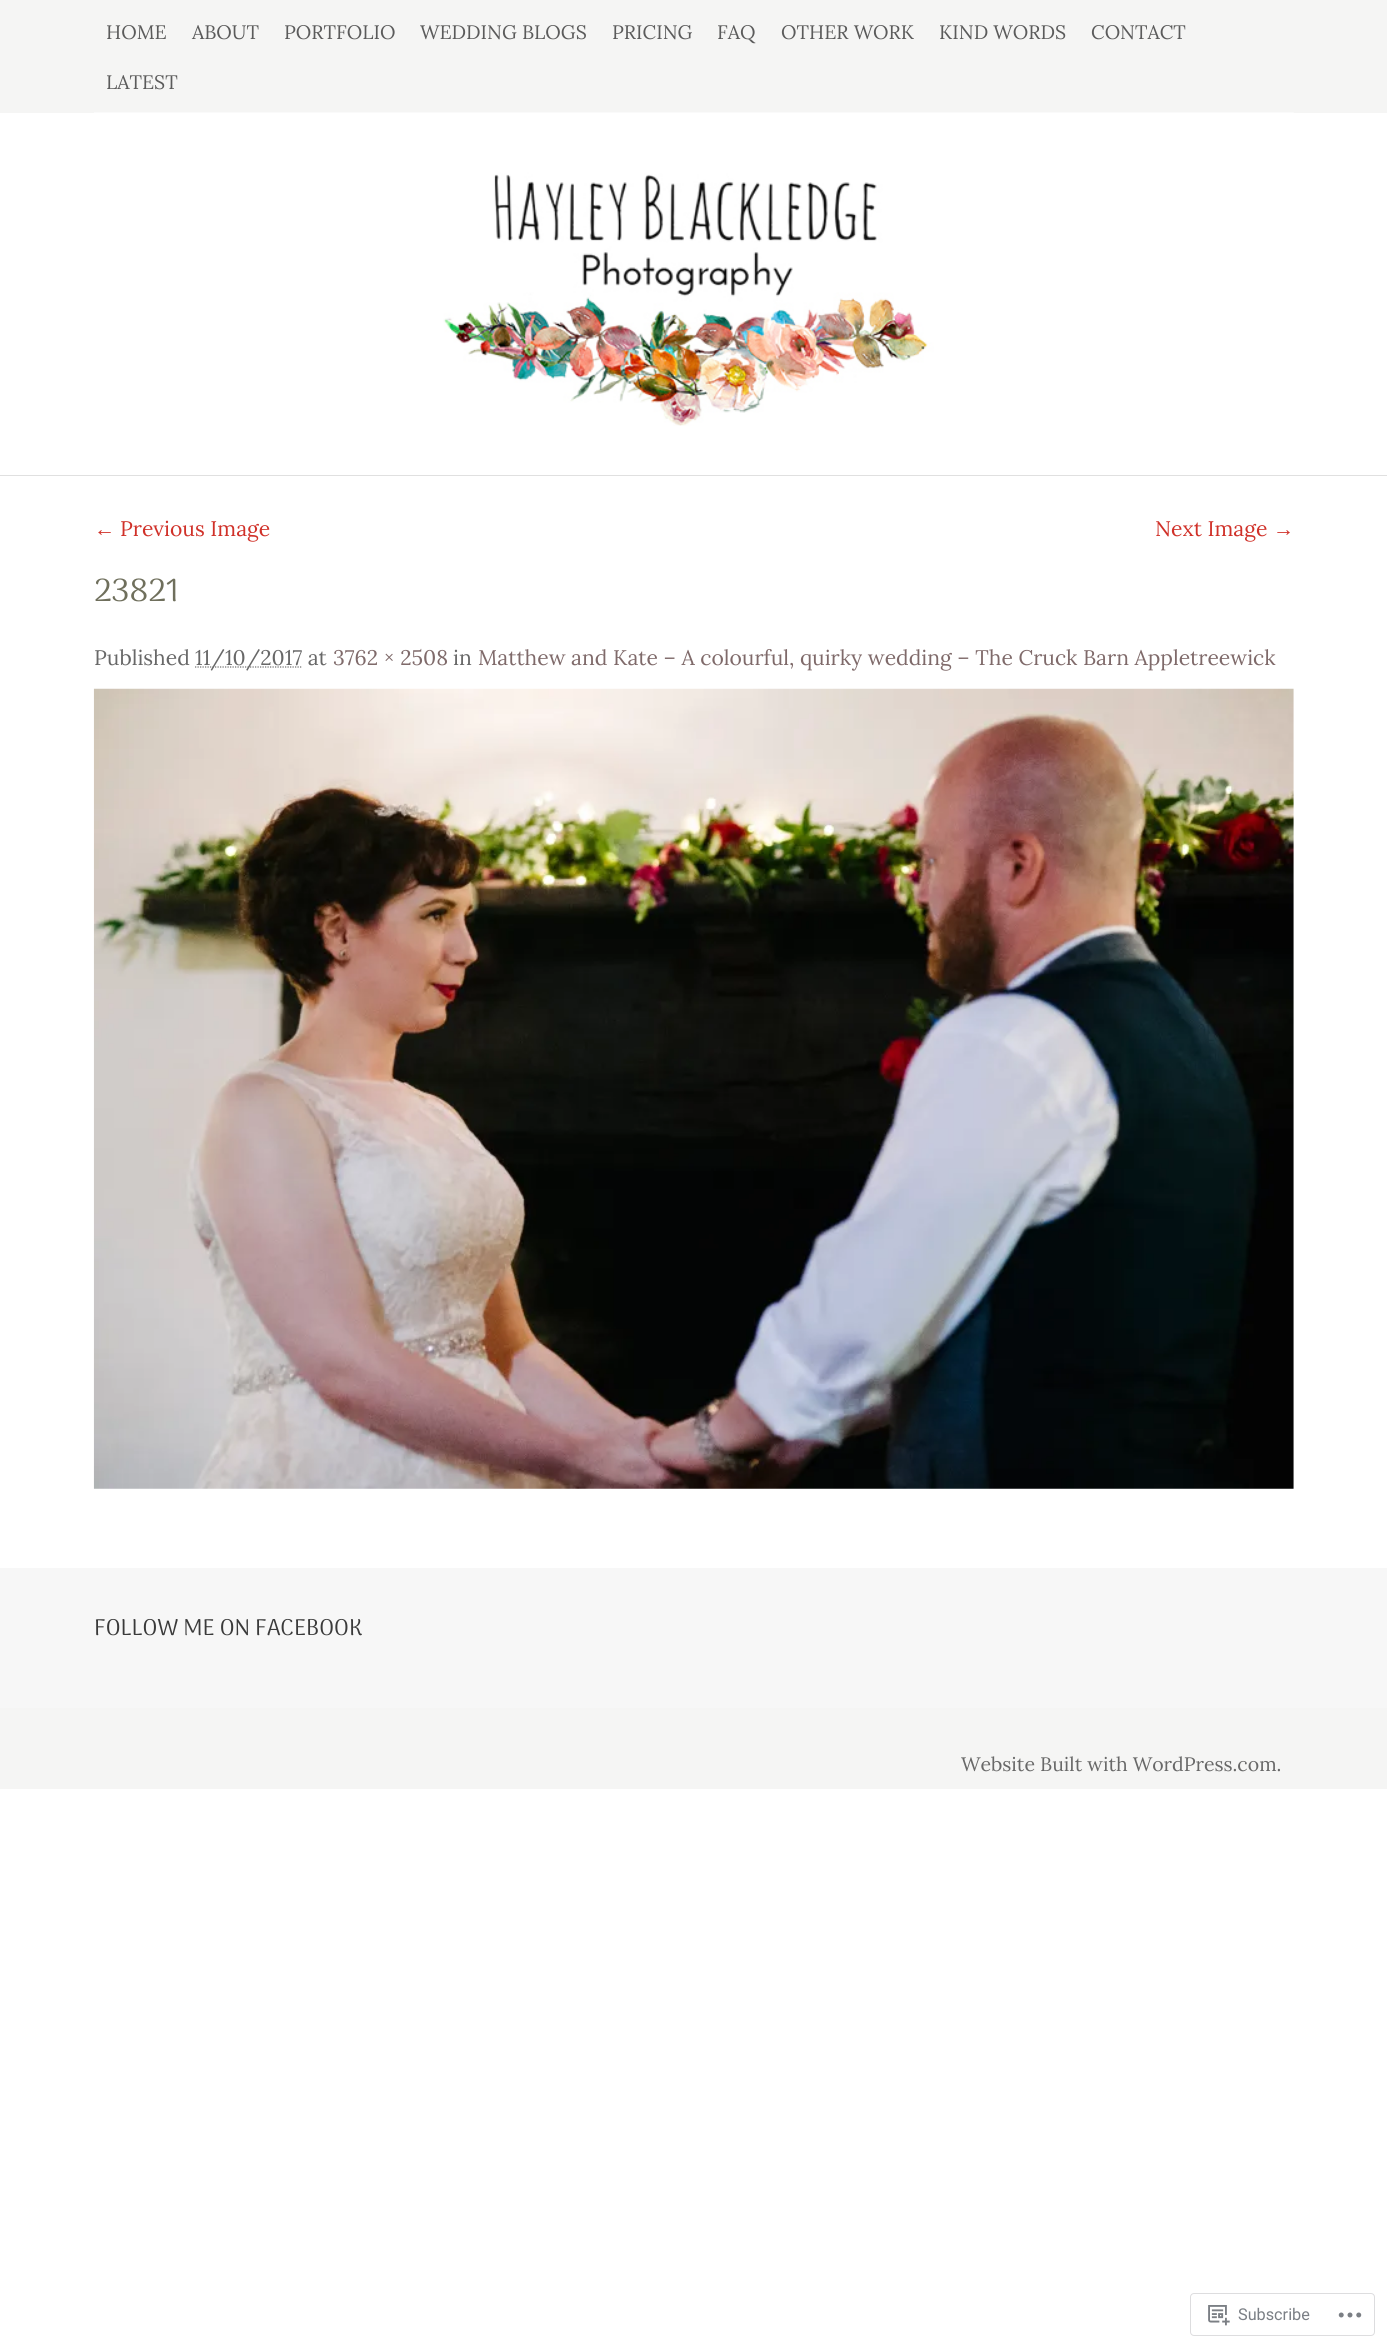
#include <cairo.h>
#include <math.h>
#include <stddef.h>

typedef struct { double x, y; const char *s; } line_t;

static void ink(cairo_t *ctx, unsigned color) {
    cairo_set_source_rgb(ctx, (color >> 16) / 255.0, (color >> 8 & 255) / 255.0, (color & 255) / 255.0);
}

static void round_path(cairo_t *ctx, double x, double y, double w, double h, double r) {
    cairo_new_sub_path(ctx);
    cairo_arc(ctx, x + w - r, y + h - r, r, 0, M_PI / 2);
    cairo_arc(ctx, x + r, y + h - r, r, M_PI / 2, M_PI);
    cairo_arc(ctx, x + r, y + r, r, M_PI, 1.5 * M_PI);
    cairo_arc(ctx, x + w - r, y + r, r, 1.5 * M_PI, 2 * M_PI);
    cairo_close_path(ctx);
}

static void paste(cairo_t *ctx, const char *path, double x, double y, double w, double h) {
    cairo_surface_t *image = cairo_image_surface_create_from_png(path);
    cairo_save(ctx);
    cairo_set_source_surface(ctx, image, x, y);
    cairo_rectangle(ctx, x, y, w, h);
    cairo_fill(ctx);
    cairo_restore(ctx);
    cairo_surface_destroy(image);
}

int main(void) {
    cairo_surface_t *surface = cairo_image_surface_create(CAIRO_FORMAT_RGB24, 1387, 2348);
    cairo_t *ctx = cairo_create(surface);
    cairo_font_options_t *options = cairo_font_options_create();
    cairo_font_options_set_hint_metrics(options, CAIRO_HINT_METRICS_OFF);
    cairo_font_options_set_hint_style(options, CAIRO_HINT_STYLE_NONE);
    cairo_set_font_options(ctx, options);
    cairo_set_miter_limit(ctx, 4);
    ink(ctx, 0xFFFFFF);
    cairo_paint(ctx);
    ink(ctx, 0xF5F5F4);
    cairo_rectangle(ctx, 0, 0, 1387, 113);
    cairo_fill(ctx);
    cairo_select_font_face(ctx, "Lora", CAIRO_FONT_SLANT_NORMAL, CAIRO_FONT_WEIGHT_NORMAL);
    cairo_set_font_size(ctx, 19.5);
    ink(ctx, 0x5B5B5B);
    {
        static const line_t items[] = {
            {106, 39, "HOME"},
            {192, 39, "ABOUT"},
            {284, 39, "PORTFOLIO"},
            {420, 39, "WEDDING BLOGS"},
            {612, 39, "PRICING"},
            {717, 39, "FAQ"},
            {781, 39, "OTHER WORK"},
            {939, 39, "KIND WORDS"},
            {1091, 39, "CONTACT"},
            {106, 89, "LATEST"},
        };
        for (size_t i = 0; i < sizeof items / sizeof *items; i++) {
            cairo_move_to(ctx, items[i].x, items[i].y);
            cairo_show_text(ctx, items[i].s);
        }
    }
    ink(ctx, 0xE0E0E0);
    cairo_rectangle(ctx, 0, 475, 1387, 1);
    cairo_fill(ctx);
    paste(ctx, "media/1.png", 94, 112, 1200, 314);
    cairo_select_font_face(ctx, "Liberation Serif", CAIRO_FONT_SLANT_NORMAL, CAIRO_FONT_WEIGHT_NORMAL);
    cairo_set_font_size(ctx, 21.1);
    ink(ctx, 0xD03129);
    cairo_move_to(ctx, 94, 536);
    cairo_show_text(ctx, "←");
    cairo_select_font_face(ctx, "Lora", CAIRO_FONT_SLANT_NORMAL, CAIRO_FONT_WEIGHT_NORMAL);
    cairo_move_to(ctx, 120, 536);
    cairo_show_text(ctx, "Previous Image");
    cairo_move_to(ctx, 1155, 536);
    cairo_show_text(ctx, "Next Image");
    cairo_select_font_face(ctx, "Liberation Serif", CAIRO_FONT_SLANT_NORMAL, CAIRO_FONT_WEIGHT_NORMAL);
    cairo_move_to(ctx, 1273, 536);
    cairo_show_text(ctx, "→");
    cairo_select_font_face(ctx, "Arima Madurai", CAIRO_FONT_SLANT_NORMAL, CAIRO_FONT_WEIGHT_NORMAL);
    cairo_set_font_size(ctx, 32);
    ink(ctx, 0x6F6F5C);
    cairo_move_to(ctx, 94, 601);
    cairo_show_text(ctx, "23821");
    cairo_select_font_face(ctx, "Lora", CAIRO_FONT_SLANT_NORMAL, CAIRO_FONT_WEIGHT_NORMAL);
    cairo_set_font_size(ctx, 21.1);
    ink(ctx, 0x686868);
    cairo_move_to(ctx, 94, 665);
    cairo_show_text(ctx, "Published");
    cairo_new_path(ctx);
    cairo_move_to(ctx, 195, 667);
    cairo_line_to(ctx, 302.5, 667);
    ink(ctx, 0x6D6D6D);
    cairo_set_line_width(ctx, 1.2);
    cairo_set_dash(ctx, (double[]){1.25, 1.25}, 2, 0);
    cairo_stroke(ctx);
    ink(ctx, 0x686868);
    cairo_move_to(ctx, 195, 665);
    cairo_show_text(ctx, "11/10/2017 at");
    ink(ctx, 0x7F6A6A);
    cairo_move_to(ctx, 333, 665);
    cairo_show_text(ctx, "3762 × 2508");
    ink(ctx, 0x686868);
    cairo_move_to(ctx, 453, 665);
    cairo_show_text(ctx, "in");
    ink(ctx, 0x7F6A6A);
    cairo_move_to(ctx, 478, 665);
    cairo_show_text(ctx, "Matthew and Kate – A colourful, quirky wedding – The Cruck Barn Appletreewick");
    paste(ctx, "media/2.png", 93, 688, 1201, 801);
    ink(ctx, 0xF7F7F7);
    cairo_rectangle(ctx, 0, 1568, 1387, 140);
    cairo_fill(ctx);
    cairo_select_font_face(ctx, "Arima Madurai", CAIRO_FONT_SLANT_NORMAL, CAIRO_FONT_WEIGHT_NORMAL);
    cairo_set_font_size(ctx, 22.75);
    ink(ctx, 0x3A3A3A);
    cairo_move_to(ctx, 94, 1635);
    cairo_show_text(ctx, "FOLLOW ME ON FACEBOOK");
    ink(ctx, 0xF5F5F4);
    cairo_rectangle(ctx, 0, 1708, 1387, 81);
    cairo_fill(ctx);
    cairo_select_font_face(ctx, "Lora", CAIRO_FONT_SLANT_NORMAL, CAIRO_FONT_WEIGHT_NORMAL);
    cairo_set_font_size(ctx, 19.5);
    ink(ctx, 0x686868);
    cairo_move_to(ctx, 961, 1771);
    cairo_show_text(ctx, "Website Built with WordPress.com.");
    round_path(ctx, 1190.5, 2293.5, 184, 42, 3.5);
    ink(ctx, 0xDDDDDF);
    cairo_set_line_width(ctx, 1);
    cairo_set_dash(ctx, NULL, 0, 0);
    cairo_stroke(ctx);
    paste(ctx, "media/3.png", 1208, 2305, 22, 21);
    cairo_select_font_face(ctx, "Roboto", CAIRO_FONT_SLANT_NORMAL, CAIRO_FONT_WEIGHT_NORMAL);
    cairo_set_font_size(ctx, 16.25);
    ink(ctx, 0x7B7F85);
    cairo_move_to(ctx, 1238, 2320);
    cairo_show_text(ctx, "Subscribe");
    paste(ctx, "media/4.png", 1338, 2312, 24, 6);
    cairo_surface_write_to_png(surface, "image.png");
    cairo_font_options_destroy(options);
    cairo_destroy(ctx);
    cairo_surface_destroy(surface);
    return 0;
}
